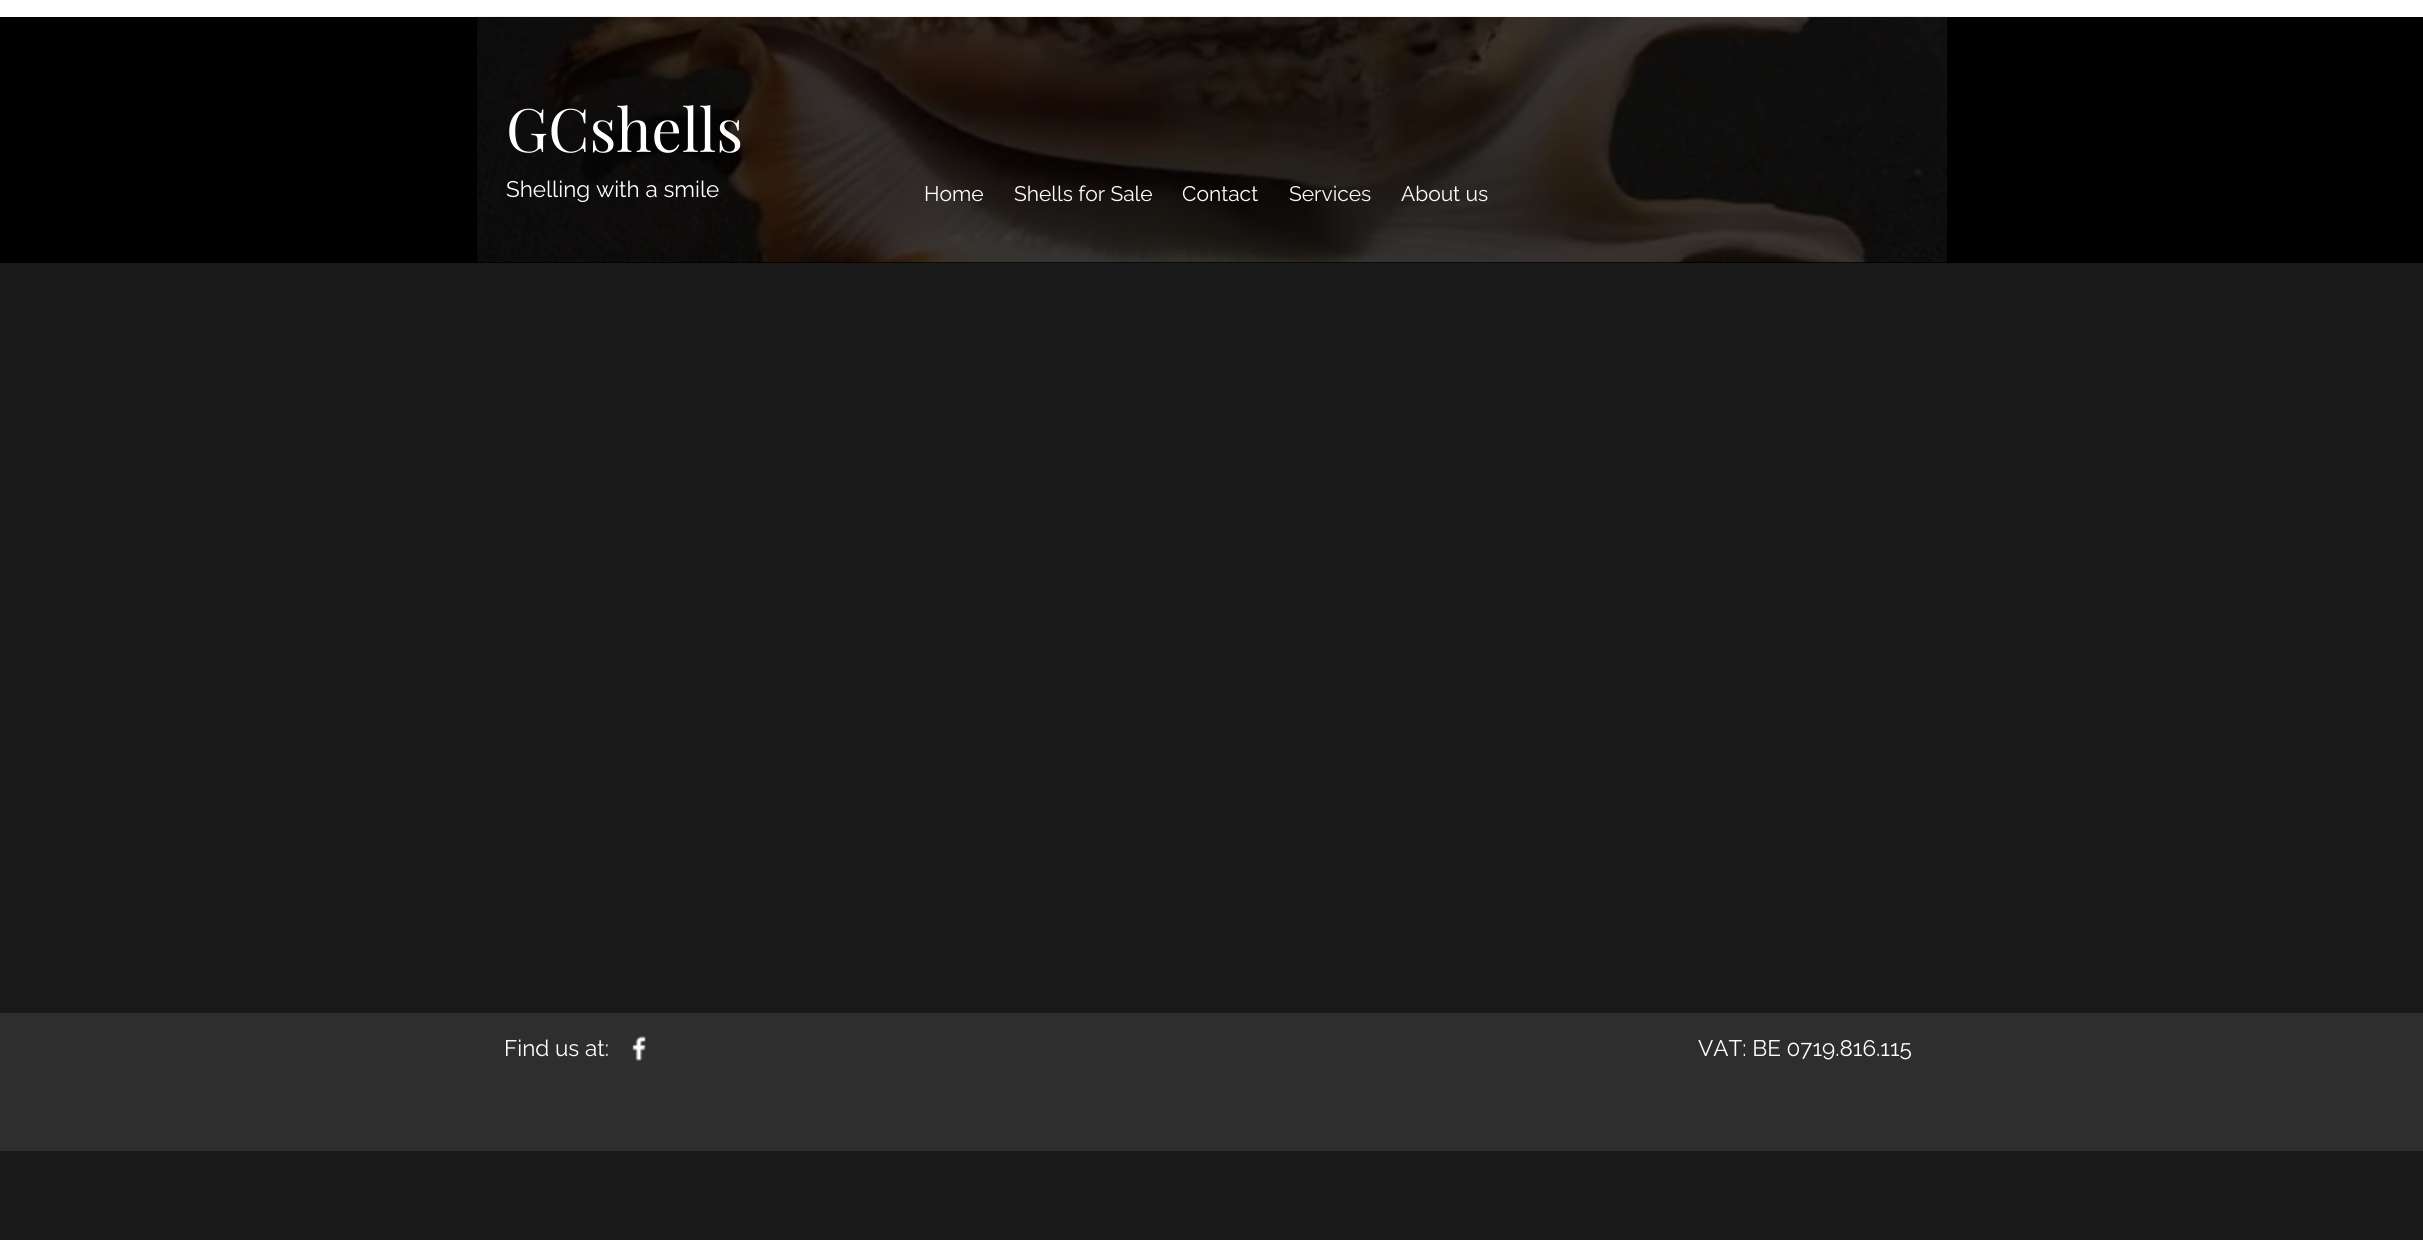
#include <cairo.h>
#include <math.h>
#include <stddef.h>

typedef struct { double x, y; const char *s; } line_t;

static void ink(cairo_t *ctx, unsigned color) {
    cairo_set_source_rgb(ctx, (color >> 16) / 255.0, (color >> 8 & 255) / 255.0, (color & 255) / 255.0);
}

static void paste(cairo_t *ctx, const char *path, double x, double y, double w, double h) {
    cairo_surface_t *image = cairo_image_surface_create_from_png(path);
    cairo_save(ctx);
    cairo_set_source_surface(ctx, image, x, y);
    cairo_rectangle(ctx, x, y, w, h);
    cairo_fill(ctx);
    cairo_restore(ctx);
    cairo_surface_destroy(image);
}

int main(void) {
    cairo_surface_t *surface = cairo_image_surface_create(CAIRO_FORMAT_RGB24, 2423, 1240);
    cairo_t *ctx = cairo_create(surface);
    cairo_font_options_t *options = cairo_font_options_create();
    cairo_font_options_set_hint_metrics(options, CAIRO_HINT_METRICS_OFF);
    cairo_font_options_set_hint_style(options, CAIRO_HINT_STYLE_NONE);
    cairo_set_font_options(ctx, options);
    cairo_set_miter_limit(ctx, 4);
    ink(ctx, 0xFFFFFF);
    cairo_paint(ctx);
    ink(ctx, 0x000000);
    cairo_rectangle(ctx, 0, 17, 2423, 246);
    cairo_fill(ctx);
    paste(ctx, "media/1.png", 477, 16, 1470, 247);
    cairo_select_font_face(ctx, "Playfair Display", CAIRO_FONT_SLANT_NORMAL, CAIRO_FONT_WEIGHT_NORMAL);
    cairo_set_font_size(ctx, 60);
    ink(ctx, 0xFFFFFF);
    cairo_move_to(ctx, 506, 152);
    cairo_show_text(ctx, "GCshells");
    cairo_select_font_face(ctx, "Raleway", CAIRO_FONT_SLANT_NORMAL, CAIRO_FONT_WEIGHT_NORMAL);
    cairo_set_font_size(ctx, 22.5);
    cairo_move_to(ctx, 506, 197);
    cairo_show_text(ctx, "Shelling with a smile");
    cairo_set_font_size(ctx, 21);
    {
        static const line_t items[] = {
            {924, 201, "Home"},
            {1014, 201, "Shells for Sale"},
            {1182, 201, "Contact"},
        };
        for (size_t i = 0; i < sizeof items / sizeof *items; i++) {
            cairo_move_to(ctx, items[i].x, items[i].y);
            cairo_show_text(ctx, items[i].s);
        }
    }
    ink(ctx, 0xF7F7F7);
    cairo_move_to(ctx, 1289, 201);
    cairo_show_text(ctx, "Services");
    ink(ctx, 0xFFFFFF);
    cairo_move_to(ctx, 1401, 201);
    cairo_show_text(ctx, "About us");
    ink(ctx, 0x191919);
    cairo_rectangle(ctx, 0, 263, 2423, 977);
    cairo_fill(ctx);
    ink(ctx, 0x2F2E2E);
    cairo_rectangle(ctx, 0, 1013, 2423, 138);
    cairo_fill(ctx);
    cairo_set_font_size(ctx, 22.5);
    ink(ctx, 0xFFFFFF);
    cairo_move_to(ctx, 504, 1056);
    cairo_show_text(ctx, "Find us at:");
    paste(ctx, "media/2.png", 632, 1036, 14, 25);
    cairo_move_to(ctx, 1698, 1056);
    cairo_show_text(ctx, "VAT: BE 0719.816.115");
    cairo_surface_write_to_png(surface, "image.png");
    cairo_font_options_destroy(options);
    cairo_destroy(ctx);
    cairo_surface_destroy(surface);
    return 0;
}
